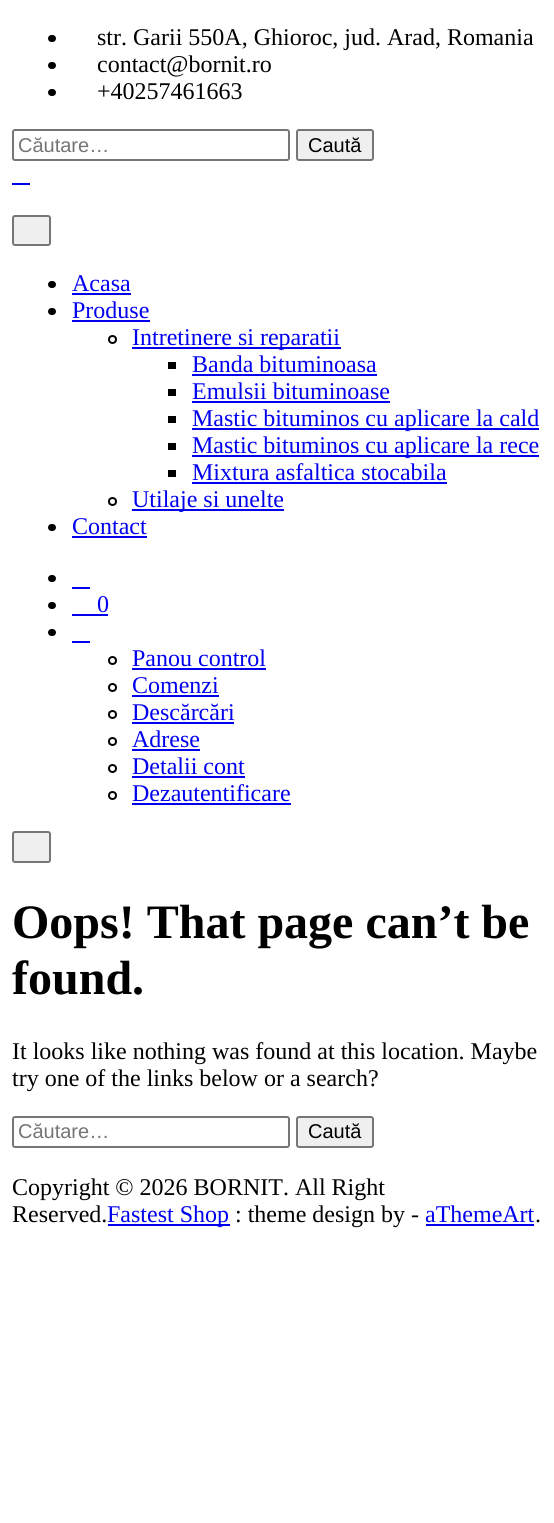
#include <cairo.h>
#include <math.h>
#include <stddef.h>

typedef struct { double x, y, w, h; unsigned color; } box_t;

static void ink(cairo_t *ctx, unsigned color) {
    cairo_set_source_rgb(ctx, (color >> 16) / 255.0, (color >> 8 & 255) / 255.0, (color & 255) / 255.0);
}

static void round_path(cairo_t *ctx, double x, double y, double w, double h, double r) {
    cairo_new_sub_path(ctx);
    cairo_arc(ctx, x + w - r, y + h - r, r, 0, M_PI / 2);
    cairo_arc(ctx, x + r, y + h - r, r, M_PI / 2, M_PI);
    cairo_arc(ctx, x + r, y + r, r, M_PI, 1.5 * M_PI);
    cairo_arc(ctx, x + w - r, y + r, r, 1.5 * M_PI, 2 * M_PI);
    cairo_close_path(ctx);
}

int main(void) {
    cairo_surface_t *surface = cairo_image_surface_create(CAIRO_FORMAT_RGB24, 554, 1523);
    cairo_t *ctx = cairo_create(surface);
    cairo_font_options_t *options = cairo_font_options_create();
    cairo_font_options_set_hint_metrics(options, CAIRO_HINT_METRICS_OFF);
    cairo_font_options_set_hint_style(options, CAIRO_HINT_STYLE_NONE);
    cairo_set_font_options(ctx, options);
    cairo_set_miter_limit(ctx, 4);
    ink(ctx, 0xFFFFFF);
    cairo_paint(ctx);
    ink(ctx, 0x000000);
    round_path(ctx, 48, 35, 8, 7, 3.5);
    cairo_fill(ctx);
    cairo_select_font_face(ctx, "Liberation Serif", CAIRO_FONT_SLANT_NORMAL, CAIRO_FONT_WEIGHT_NORMAL);
    cairo_set_font_size(ctx, 24);
    cairo_move_to(ctx, 97, 45);
    cairo_show_text(ctx, "str. Garii 550A, Ghioroc, jud. Arad, Romania");
    round_path(ctx, 48, 62, 8, 7, 3.5);
    cairo_fill(ctx);
    cairo_move_to(ctx, 97, 72);
    cairo_show_text(ctx, "contact@bornit.ro");
    round_path(ctx, 48, 89, 8, 7, 3.5);
    cairo_fill(ctx);
    cairo_move_to(ctx, 97, 99);
    cairo_show_text(ctx, "+40257461663");
    round_path(ctx, 13, 130, 276, 30, 2);
    ink(ctx, 0x767676);
    cairo_stroke(ctx);
    cairo_select_font_face(ctx, "Liberation Sans", CAIRO_FONT_SLANT_NORMAL, CAIRO_FONT_WEIGHT_NORMAL);
    cairo_set_font_size(ctx, 20);
    ink(ctx, 0x757575);
    cairo_move_to(ctx, 18, 152);
    cairo_show_text(ctx, "Căutare…");
    ink(ctx, 0xEFEFEF);
    round_path(ctx, 297, 130, 76, 30, 2);
    cairo_fill_preserve(ctx);
    ink(ctx, 0x767676);
    cairo_stroke(ctx);
    ink(ctx, 0x000000);
    cairo_move_to(ctx, 308, 152);
    cairo_show_text(ctx, "Caută");
    ink(ctx, 0x0000EE);
    cairo_rectangle(ctx, 12, 183, 18, 2);
    cairo_fill(ctx);
    ink(ctx, 0xEFEFEF);
    round_path(ctx, 13, 216, 37, 29, 2);
    cairo_fill_preserve(ctx);
    ink(ctx, 0x767676);
    cairo_stroke(ctx);
    ink(ctx, 0x000000);
    round_path(ctx, 48, 281, 8, 7, 3.5);
    cairo_fill(ctx);
    cairo_select_font_face(ctx, "Liberation Serif", CAIRO_FONT_SLANT_NORMAL, CAIRO_FONT_WEIGHT_NORMAL);
    cairo_set_font_size(ctx, 24);
    ink(ctx, 0x0000EE);
    cairo_move_to(ctx, 72, 291);
    cairo_show_text(ctx, "Acasa");
    cairo_rectangle(ctx, 72, 293, 59, 2);
    cairo_fill(ctx);
    ink(ctx, 0x000000);
    round_path(ctx, 48, 308, 8, 7, 3.5);
    cairo_fill(ctx);
    ink(ctx, 0x0000EE);
    cairo_move_to(ctx, 72, 318);
    cairo_show_text(ctx, "Produse");
    cairo_rectangle(ctx, 72, 320, 78, 2);
    cairo_fill(ctx);
    cairo_arc(ctx, 112.5, 339.5, 3.5, 0, 2 * M_PI);
    ink(ctx, 0x000000);
    cairo_stroke(ctx);
    ink(ctx, 0x0000EE);
    cairo_rectangle(ctx, 132, 347, 209, 2);
    cairo_fill(ctx);
    cairo_move_to(ctx, 132, 345);
    cairo_show_text(ctx, "Intretinere si reparatii");
    ink(ctx, 0x000000);
    cairo_rectangle(ctx, 168, 362, 8, 7);
    cairo_fill(ctx);
    ink(ctx, 0x0000EE);
    cairo_move_to(ctx, 192, 372);
    cairo_show_text(ctx, "Banda bituminoasa");
    cairo_rectangle(ctx, 192, 374, 185, 2);
    cairo_fill(ctx);
    ink(ctx, 0x000000);
    cairo_rectangle(ctx, 168, 389, 8, 7);
    cairo_fill(ctx);
    ink(ctx, 0x0000EE);
    cairo_move_to(ctx, 192, 399);
    cairo_show_text(ctx, "Emulsii bituminoase");
    {
        static const box_t items[] = {
            {192, 401, 198, 2, 0x0000EE},
            {168, 416, 8, 7, 0x000000},
            {192, 428, 347, 2, 0x0000EE},
        };
        for (size_t i = 0; i < sizeof items / sizeof *items; i++) {
            ink(ctx, items[i].color);
            cairo_rectangle(ctx, items[i].x, items[i].y, items[i].w, items[i].h);
            cairo_fill(ctx);
        }
    }
    cairo_move_to(ctx, 192, 426);
    cairo_show_text(ctx, "Mastic bituminos cu aplicare la cald");
    ink(ctx, 0x000000);
    cairo_rectangle(ctx, 168, 443, 8, 7);
    cairo_fill(ctx);
    ink(ctx, 0x0000EE);
    cairo_rectangle(ctx, 192, 455, 347, 2);
    cairo_fill(ctx);
    cairo_move_to(ctx, 192, 453);
    cairo_show_text(ctx, "Mastic bituminos cu aplicare la rece");
    ink(ctx, 0x000000);
    cairo_rectangle(ctx, 168, 470, 8, 7);
    cairo_fill(ctx);
    ink(ctx, 0x0000EE);
    cairo_move_to(ctx, 192, 480);
    cairo_show_text(ctx, "Mixtura asfaltica stocabila");
    cairo_rectangle(ctx, 192, 482, 255, 2);
    cairo_fill(ctx);
    cairo_arc(ctx, 112.5, 501.5, 3.5, 0, 2 * M_PI);
    ink(ctx, 0x000000);
    cairo_stroke(ctx);
    ink(ctx, 0x0000EE);
    cairo_rectangle(ctx, 132, 509, 152, 2);
    cairo_fill(ctx);
    cairo_move_to(ctx, 132, 507);
    cairo_show_text(ctx, "Utilaje si unelte");
    ink(ctx, 0x000000);
    round_path(ctx, 48, 524, 8, 7, 3.5);
    cairo_fill(ctx);
    ink(ctx, 0x0000EE);
    cairo_move_to(ctx, 72, 534);
    cairo_show_text(ctx, "Contact");
    cairo_rectangle(ctx, 72, 536, 75, 2);
    cairo_fill(ctx);
    ink(ctx, 0x000000);
    round_path(ctx, 48, 575, 8, 7, 3.5);
    cairo_fill(ctx);
    ink(ctx, 0x0000EE);
    cairo_rectangle(ctx, 72, 587, 18, 2);
    cairo_fill(ctx);
    ink(ctx, 0x000000);
    round_path(ctx, 48, 602, 8, 7, 3.5);
    cairo_fill(ctx);
    ink(ctx, 0x0000EE);
    cairo_move_to(ctx, 97, 612);
    cairo_show_text(ctx, "0");
    cairo_rectangle(ctx, 72, 614, 36, 2);
    cairo_fill(ctx);
    ink(ctx, 0x000000);
    round_path(ctx, 48, 629, 8, 7, 3.5);
    cairo_fill(ctx);
    ink(ctx, 0x0000EE);
    cairo_rectangle(ctx, 72, 641, 18, 2);
    cairo_fill(ctx);
    cairo_arc(ctx, 112.5, 660.5, 3.5, 0, 2 * M_PI);
    ink(ctx, 0x000000);
    cairo_stroke(ctx);
    ink(ctx, 0x0000EE);
    cairo_move_to(ctx, 132, 666);
    cairo_show_text(ctx, "Panou control");
    cairo_rectangle(ctx, 132, 668, 134, 2);
    cairo_fill(ctx);
    cairo_arc(ctx, 112.5, 687.5, 3.5, 0, 2 * M_PI);
    ink(ctx, 0x000000);
    cairo_stroke(ctx);
    ink(ctx, 0x0000EE);
    cairo_move_to(ctx, 132, 693);
    cairo_show_text(ctx, "Comenzi");
    cairo_rectangle(ctx, 132, 695, 87, 2);
    cairo_fill(ctx);
    cairo_arc(ctx, 112.5, 714.5, 3.5, 0, 2 * M_PI);
    ink(ctx, 0x000000);
    cairo_stroke(ctx);
    ink(ctx, 0x0000EE);
    cairo_move_to(ctx, 132, 720);
    cairo_show_text(ctx, "Descărcări");
    cairo_rectangle(ctx, 132, 722, 102, 2);
    cairo_fill(ctx);
    cairo_arc(ctx, 112.5, 741.5, 3.5, 0, 2 * M_PI);
    ink(ctx, 0x000000);
    cairo_stroke(ctx);
    ink(ctx, 0x0000EE);
    cairo_move_to(ctx, 132, 747);
    cairo_show_text(ctx, "Adrese");
    cairo_rectangle(ctx, 132, 749, 68, 2);
    cairo_fill(ctx);
    cairo_arc(ctx, 112.5, 768.5, 3.5, 0, 2 * M_PI);
    ink(ctx, 0x000000);
    cairo_stroke(ctx);
    ink(ctx, 0x0000EE);
    cairo_move_to(ctx, 132, 774);
    cairo_show_text(ctx, "Detalii cont");
    cairo_rectangle(ctx, 132, 776, 113, 2);
    cairo_fill(ctx);
    cairo_arc(ctx, 112.5, 795.5, 3.5, 0, 2 * M_PI);
    ink(ctx, 0x000000);
    cairo_stroke(ctx);
    ink(ctx, 0x0000EE);
    cairo_move_to(ctx, 132, 801);
    cairo_show_text(ctx, "Dezautentificare");
    cairo_rectangle(ctx, 132, 803, 159, 2);
    cairo_fill(ctx);
    ink(ctx, 0xEFEFEF);
    round_path(ctx, 13, 832, 37, 30, 2);
    cairo_fill_preserve(ctx);
    ink(ctx, 0x767676);
    cairo_stroke(ctx);
    cairo_select_font_face(ctx, "Liberation Serif", CAIRO_FONT_SLANT_NORMAL, CAIRO_FONT_WEIGHT_BOLD);
    cairo_set_font_size(ctx, 48);
    ink(ctx, 0x000000);
    cairo_move_to(ctx, 12, 938);
    cairo_show_text(ctx, "Oops! That page can’t be");
    cairo_move_to(ctx, 12, 994);
    cairo_show_text(ctx, "found.");
    cairo_select_font_face(ctx, "Liberation Serif", CAIRO_FONT_SLANT_NORMAL, CAIRO_FONT_WEIGHT_NORMAL);
    cairo_set_font_size(ctx, 24);
    cairo_move_to(ctx, 12, 1059);
    cairo_show_text(ctx, "It looks like nothing was found at this location. Maybe");
    cairo_move_to(ctx, 12, 1086);
    cairo_show_text(ctx, "try one of the links below or a search?");
    round_path(ctx, 13, 1117, 276, 30, 2);
    ink(ctx, 0x767676);
    cairo_stroke(ctx);
    cairo_select_font_face(ctx, "Liberation Sans", CAIRO_FONT_SLANT_NORMAL, CAIRO_FONT_WEIGHT_NORMAL);
    cairo_set_font_size(ctx, 20);
    ink(ctx, 0x757575);
    cairo_move_to(ctx, 18, 1138);
    cairo_show_text(ctx, "Căutare…");
    ink(ctx, 0xEFEFEF);
    round_path(ctx, 297, 1117, 76, 30, 2);
    cairo_fill_preserve(ctx);
    ink(ctx, 0x767676);
    cairo_stroke(ctx);
    ink(ctx, 0x000000);
    cairo_move_to(ctx, 308, 1138);
    cairo_show_text(ctx, "Caută");
    cairo_select_font_face(ctx, "Liberation Serif", CAIRO_FONT_SLANT_NORMAL, CAIRO_FONT_WEIGHT_NORMAL);
    cairo_set_font_size(ctx, 24);
    cairo_move_to(ctx, 12, 1195);
    cairo_show_text(ctx, "Copyright © 2026 BORNIT. All Right");
    cairo_move_to(ctx, 12, 1222);
    cairo_show_text(ctx, "Reserved.");
    ink(ctx, 0x0000EE);
    cairo_rectangle(ctx, 108, 1224, 122, 2);
    cairo_fill(ctx);
    cairo_move_to(ctx, 107, 1222);
    cairo_show_text(ctx, "Fastest Shop");
    ink(ctx, 0x000000);
    cairo_move_to(ctx, 235, 1222);
    cairo_show_text(ctx, ": theme design by -");
    ink(ctx, 0x0000EE);
    cairo_move_to(ctx, 425, 1222);
    cairo_show_text(ctx, "aThemeArt");
    ink(ctx, 0x000000);
    cairo_move_to(ctx, 535, 1222);
    cairo_show_text(ctx, ".");
    ink(ctx, 0x0000EE);
    cairo_rectangle(ctx, 426, 1224, 108, 2);
    cairo_fill(ctx);
    cairo_surface_write_to_png(surface, "image.png");
    cairo_font_options_destroy(options);
    cairo_destroy(ctx);
    cairo_surface_destroy(surface);
    return 0;
}
